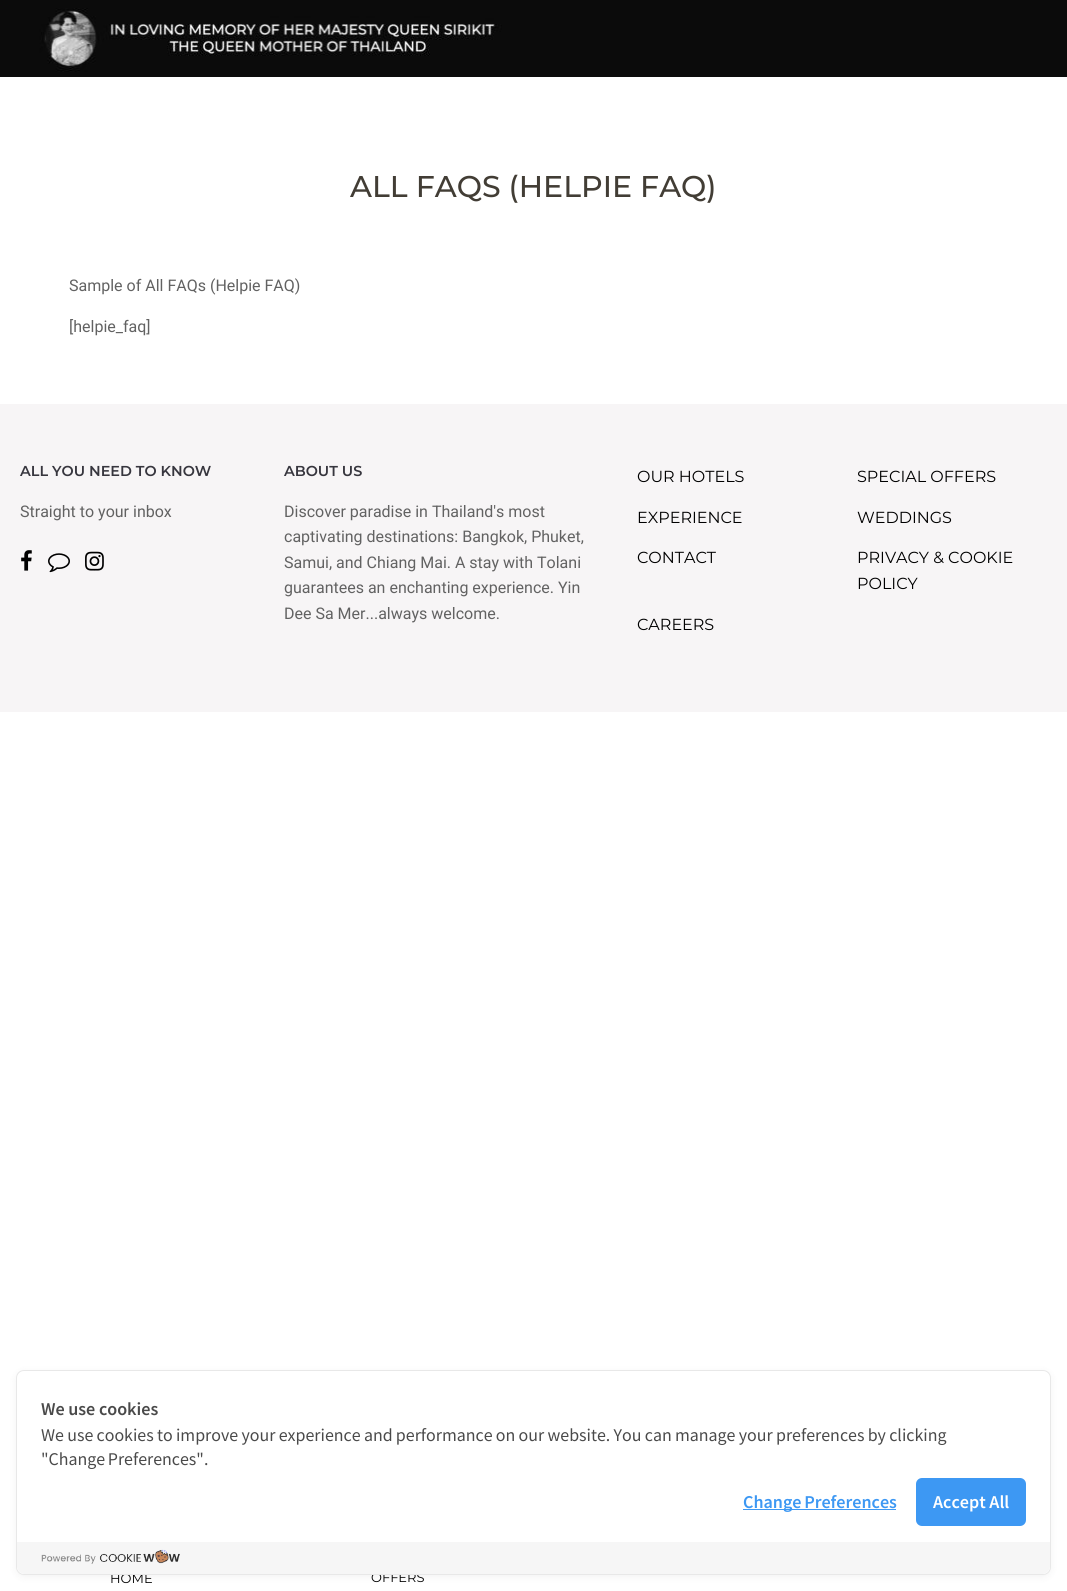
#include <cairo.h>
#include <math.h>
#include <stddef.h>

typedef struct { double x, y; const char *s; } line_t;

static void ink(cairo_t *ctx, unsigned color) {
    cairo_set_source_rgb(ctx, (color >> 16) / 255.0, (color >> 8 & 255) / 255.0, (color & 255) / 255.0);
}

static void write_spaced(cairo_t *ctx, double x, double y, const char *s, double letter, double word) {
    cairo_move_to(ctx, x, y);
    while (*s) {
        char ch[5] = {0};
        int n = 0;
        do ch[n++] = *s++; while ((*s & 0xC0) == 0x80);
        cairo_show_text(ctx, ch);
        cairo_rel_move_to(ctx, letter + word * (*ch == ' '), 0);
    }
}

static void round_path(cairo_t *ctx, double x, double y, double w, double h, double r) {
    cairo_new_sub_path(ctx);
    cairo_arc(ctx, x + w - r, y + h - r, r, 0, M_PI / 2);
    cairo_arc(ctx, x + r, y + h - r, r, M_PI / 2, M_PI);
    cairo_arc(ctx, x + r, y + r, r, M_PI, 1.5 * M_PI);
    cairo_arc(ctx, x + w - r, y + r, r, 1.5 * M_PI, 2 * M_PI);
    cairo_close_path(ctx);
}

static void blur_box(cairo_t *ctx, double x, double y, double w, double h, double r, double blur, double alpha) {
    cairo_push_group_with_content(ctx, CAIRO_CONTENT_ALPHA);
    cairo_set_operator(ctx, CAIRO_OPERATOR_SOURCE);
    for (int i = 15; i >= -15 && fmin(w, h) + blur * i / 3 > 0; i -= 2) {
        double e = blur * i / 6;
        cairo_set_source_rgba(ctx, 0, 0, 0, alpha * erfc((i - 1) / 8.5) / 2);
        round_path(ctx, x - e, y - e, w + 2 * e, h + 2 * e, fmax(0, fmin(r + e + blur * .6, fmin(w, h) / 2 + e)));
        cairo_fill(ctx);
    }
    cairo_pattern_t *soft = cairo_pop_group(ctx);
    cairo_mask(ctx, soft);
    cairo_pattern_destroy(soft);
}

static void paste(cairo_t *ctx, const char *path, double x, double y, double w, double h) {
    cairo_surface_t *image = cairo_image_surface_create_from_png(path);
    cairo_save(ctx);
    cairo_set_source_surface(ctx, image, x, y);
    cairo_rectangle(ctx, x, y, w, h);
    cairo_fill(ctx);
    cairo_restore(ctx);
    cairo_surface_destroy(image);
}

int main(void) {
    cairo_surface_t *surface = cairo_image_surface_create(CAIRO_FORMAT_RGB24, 1067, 1591);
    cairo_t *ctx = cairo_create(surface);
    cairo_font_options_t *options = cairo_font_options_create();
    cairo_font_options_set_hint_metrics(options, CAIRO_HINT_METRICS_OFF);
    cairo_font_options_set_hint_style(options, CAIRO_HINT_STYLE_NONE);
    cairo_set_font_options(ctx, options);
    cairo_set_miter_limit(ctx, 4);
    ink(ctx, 0xFFFFFF);
    cairo_paint(ctx);
    paste(ctx, "media/1.png", 0, 0, 1067, 77);
    cairo_select_font_face(ctx, "Montserrat Medium", CAIRO_FONT_SLANT_NORMAL, CAIRO_FONT_WEIGHT_NORMAL);
    cairo_set_font_size(ctx, 30);
    ink(ctx, 0x423D35);
    cairo_move_to(ctx, 350, 197);
    cairo_show_text(ctx, "ALL FAQS (HELPIE FAQ)");
    cairo_select_font_face(ctx, "Roboto", CAIRO_FONT_SLANT_NORMAL, CAIRO_FONT_WEIGHT_NORMAL);
    cairo_set_font_size(ctx, 16);
    ink(ctx, 0x626262);
    cairo_move_to(ctx, 69, 291);
    cairo_show_text(ctx, "Sample of All FAQs (Helpie FAQ)");
    cairo_move_to(ctx, 69, 332);
    cairo_show_text(ctx, "[helpie_faq]");
    ink(ctx, 0xF7F5F6);
    cairo_rectangle(ctx, 0, 404, 1067, 308);
    cairo_fill(ctx);
    cairo_select_font_face(ctx, "Montserrat SemiBold", CAIRO_FONT_SLANT_NORMAL, CAIRO_FONT_WEIGHT_NORMAL);
    cairo_set_font_size(ctx, 14.4);
    ink(ctx, 0x37363E);
    cairo_move_to(ctx, 20, 476);
    cairo_show_text(ctx, "ALL YOU NEED TO KNOW");
    cairo_select_font_face(ctx, "Roboto", CAIRO_FONT_SLANT_NORMAL, CAIRO_FONT_WEIGHT_NORMAL);
    cairo_set_font_size(ctx, 16);
    ink(ctx, 0x626262);
    cairo_move_to(ctx, 20, 517);
    cairo_show_text(ctx, "Straight to your inbox");
    paste(ctx, "media/2.png", 21, 550, 11, 21);
    paste(ctx, "media/3.png", 48, 553, 22, 20);
    paste(ctx, "media/4.png", 85, 551, 19, 20);
    cairo_select_font_face(ctx, "Montserrat SemiBold", CAIRO_FONT_SLANT_NORMAL, CAIRO_FONT_WEIGHT_NORMAL);
    cairo_set_font_size(ctx, 14.4);
    ink(ctx, 0x37363E);
    cairo_move_to(ctx, 284, 476);
    cairo_show_text(ctx, "ABOUT US");
    cairo_select_font_face(ctx, "Roboto", CAIRO_FONT_SLANT_NORMAL, CAIRO_FONT_WEIGHT_NORMAL);
    cairo_set_font_size(ctx, 16);
    ink(ctx, 0x626262);
    {
        static const line_t items[] = {
            {284, 517, "Discover paradise in Thailand's most"},
            {284, 542, "captivating destinations: Bangkok, Phuket,"},
            {284, 568, "Samui, and Chiang Mai. A stay with Tolani"},
            {284, 593, "guarantees an enchanting experience. Yin"},
            {284, 619, "Dee Sa Mer...always welcome."},
        };
        for (size_t i = 0; i < sizeof items / sizeof *items; i++) {
            cairo_move_to(ctx, items[i].x, items[i].y);
            cairo_show_text(ctx, items[i].s);
        }
    }
    cairo_select_font_face(ctx, "Montserrat", CAIRO_FONT_SLANT_NORMAL, CAIRO_FONT_WEIGHT_NORMAL);
    ink(ctx, 0x000000);
    {
        static const line_t items[] = {
            {637, 482, "OUR HOTELS"},
            {857, 482, "SPECIAL OFFERS"},
            {637, 523, "EXPERIENCE"},
            {857, 523, "WEDDINGS"},
            {637, 563, "CONTACT"},
            {857, 563, "PRIVACY & COOKIE"},
            {857, 589, "POLICY"},
            {637, 630, "CAREERS"},
        };
        for (size_t i = 0; i < sizeof items / sizeof *items; i++) {
            cairo_move_to(ctx, items[i].x, items[i].y);
            cairo_show_text(ctx, items[i].s);
        }
    }
    cairo_set_font_size(ctx, 13);
    cairo_move_to(ctx, 110, 1583);
    cairo_show_text(ctx, "HOME");
    cairo_move_to(ctx, 371, 1582);
    cairo_show_text(ctx, "OFFERS");
    ink(ctx, 0x000000);
    blur_box(ctx, 16, 1372, 1035, 205, 8, 4, 0.05);
    ink(ctx, 0xFFFFFF);
    round_path(ctx, 16.5, 1370.5, 1034, 204, 7.5);
    cairo_fill_preserve(ctx);
    ink(ctx, 0xE8E8E8);
    cairo_set_line_width(ctx, 1);
    cairo_stroke(ctx);
    cairo_select_font_face(ctx, "Noto Sans JP SemiBold", CAIRO_FONT_SLANT_NORMAL, CAIRO_FONT_WEIGHT_NORMAL);
    cairo_set_font_size(ctx, 16);
    ink(ctx, 0x4A4A4A);
    cairo_move_to(ctx, 41, 1415);
    cairo_show_text(ctx, "We use cookies");
    cairo_select_font_face(ctx, "Noto Sans JP", CAIRO_FONT_SLANT_NORMAL, CAIRO_FONT_WEIGHT_NORMAL);
    write_spaced(ctx, 41, 1441, "We use cookies to improve your experience and performance on our website. You can manage your preferences by clicking", 0, -0.3);
    write_spaced(ctx, 41, 1465, "\"Change Preferences\".", 0, -1);
    ink(ctx, 0x3D98F3);
    cairo_rectangle(ctx, 743, 1509, 153, 1);
    cairo_fill(ctx);
    cairo_select_font_face(ctx, "Noto Sans JP SemiBold", CAIRO_FONT_SLANT_NORMAL, CAIRO_FONT_WEIGHT_NORMAL);
    write_spaced(ctx, 743, 1508, "Change Preferences", 0, -1);
    round_path(ctx, 916, 1478, 110, 48, 6);
    cairo_fill(ctx);
    ink(ctx, 0xFFFFFF);
    cairo_move_to(ctx, 933, 1508);
    cairo_show_text(ctx, "Accept All");
    ink(ctx, 0xF6F6F6);
    cairo_new_path(ctx);
    cairo_move_to(ctx, 17, 1542);
    cairo_line_to(ctx, 1050, 1542);
    cairo_line_to(ctx, 1050, 1566);
    cairo_curve_to(ctx, 1050, 1570.5, 1046.5, 1574, 1042, 1574);
    cairo_line_to(ctx, 25, 1574);
    cairo_curve_to(ctx, 20.5, 1574, 17, 1570.5, 17, 1566);
    cairo_close_path(ctx);
    cairo_fill(ctx);
    paste(ctx, "media/5.png", 41, 1549, 139, 15);
    cairo_surface_write_to_png(surface, "image.png");
    cairo_font_options_destroy(options);
    cairo_destroy(ctx);
    cairo_surface_destroy(surface);
    return 0;
}
